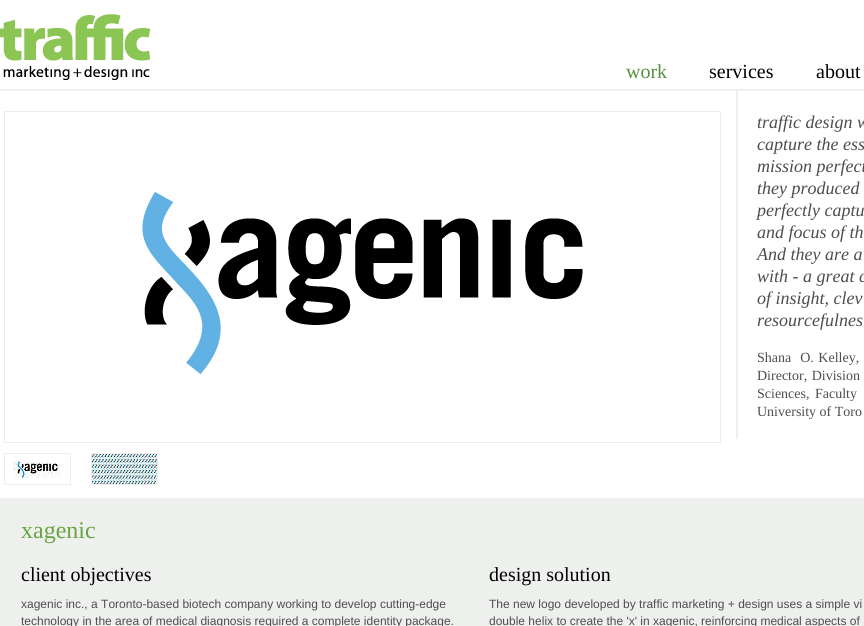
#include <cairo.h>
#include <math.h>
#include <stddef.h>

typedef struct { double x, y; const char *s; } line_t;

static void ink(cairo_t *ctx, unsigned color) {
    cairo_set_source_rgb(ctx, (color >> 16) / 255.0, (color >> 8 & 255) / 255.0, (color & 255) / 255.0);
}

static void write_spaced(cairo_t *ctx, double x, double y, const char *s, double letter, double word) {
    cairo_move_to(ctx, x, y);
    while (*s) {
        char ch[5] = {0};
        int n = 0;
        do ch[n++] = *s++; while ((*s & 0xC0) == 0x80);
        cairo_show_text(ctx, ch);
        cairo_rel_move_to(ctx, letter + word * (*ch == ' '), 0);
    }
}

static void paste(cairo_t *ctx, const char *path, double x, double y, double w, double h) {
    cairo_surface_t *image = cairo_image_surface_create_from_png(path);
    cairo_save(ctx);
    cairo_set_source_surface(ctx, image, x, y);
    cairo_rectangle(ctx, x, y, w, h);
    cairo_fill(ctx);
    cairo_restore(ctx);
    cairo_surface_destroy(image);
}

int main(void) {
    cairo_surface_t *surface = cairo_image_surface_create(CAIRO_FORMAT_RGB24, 864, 626);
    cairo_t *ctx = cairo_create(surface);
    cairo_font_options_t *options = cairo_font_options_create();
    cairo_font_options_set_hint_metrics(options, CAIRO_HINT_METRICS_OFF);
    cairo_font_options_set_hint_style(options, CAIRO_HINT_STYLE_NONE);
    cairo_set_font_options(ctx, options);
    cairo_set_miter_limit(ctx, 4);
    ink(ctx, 0xFFFFFF);
    cairo_paint(ctx);
    ink(ctx, 0xEEF0EE);
    cairo_rectangle(ctx, 0, 89, 864, 2);
    cairo_fill(ctx);
    paste(ctx, "media/1.png", 0, 14, 151, 66);
    cairo_select_font_face(ctx, "Liberation Serif", CAIRO_FONT_SLANT_NORMAL, CAIRO_FONT_WEIGHT_NORMAL);
    cairo_set_font_size(ctx, 20);
    ink(ctx, 0x578E3F);
    cairo_move_to(ctx, 626, 78);
    cairo_show_text(ctx, "work");
    ink(ctx, 0x000000);
    cairo_move_to(ctx, 709, 78);
    cairo_show_text(ctx, "services");
    cairo_move_to(ctx, 816, 78);
    cairo_show_text(ctx, "about");
    cairo_rectangle(ctx, 4.5, 111.5, 716, 331);
    ink(ctx, 0xEDEDED);
    cairo_set_line_width(ctx, 1);
    cairo_stroke(ctx);
    paste(ctx, "media/2.png", 142, 192, 441, 182);
    cairo_rectangle(ctx, 4.5, 453.5, 66, 31);
    cairo_stroke(ctx);
    paste(ctx, "media/3.png", 13, 454, 48, 24);
    cairo_rectangle(ctx, 91.5, 453.5, 66, 31);
    cairo_stroke(ctx);
    paste(ctx, "media/4.png", 92, 454, 65, 30);
    ink(ctx, 0xEEF0EE);
    cairo_rectangle(ctx, 736, 91, 2, 348);
    cairo_fill(ctx);
    cairo_select_font_face(ctx, "Liberation Serif", CAIRO_FONT_SLANT_ITALIC, CAIRO_FONT_WEIGHT_NORMAL);
    cairo_set_font_size(ctx, 18);
    ink(ctx, 0x4D4D4D);
    {
        static const line_t items[] = {
            {757, 128, "traffic design w"},
            {757, 150, "capture the ess"},
            {757, 172, "mission perfect"},
            {757, 194, "they produced"},
            {757, 216, "perfectly captu"},
            {757, 238, "and focus of th"},
            {757, 260, "And they are a"},
            {757, 282, "with - a great c"},
            {757, 304, "of insight, clev"},
            {757, 326, "resourcefulnes"},
        };
        for (size_t i = 0; i < sizeof items / sizeof *items; i++) {
            cairo_move_to(ctx, items[i].x, items[i].y);
            cairo_show_text(ctx, items[i].s);
        }
    }
    cairo_select_font_face(ctx, "Liberation Serif", CAIRO_FONT_SLANT_NORMAL, CAIRO_FONT_WEIGHT_NORMAL);
    cairo_set_font_size(ctx, 14);
    write_spaced(ctx, 757, 362, "Shana  O. Kelley,", 0, 1);
    write_spaced(ctx, 757, 380, "Director, Division", 0, 1);
    write_spaced(ctx, 757, 398, "Sciences, Faculty", 0, 2);
    cairo_move_to(ctx, 757, 416);
    cairo_show_text(ctx, "University of Toro");
    ink(ctx, 0xEEF0EE);
    cairo_rectangle(ctx, 0, 498, 864, 128);
    cairo_fill(ctx);
    cairo_set_font_size(ctx, 24);
    ink(ctx, 0x69A442);
    cairo_move_to(ctx, 21, 538);
    cairo_show_text(ctx, "xagenic");
    cairo_set_font_size(ctx, 20);
    ink(ctx, 0x000000);
    cairo_move_to(ctx, 21, 581);
    cairo_show_text(ctx, "client objectives");
    cairo_select_font_face(ctx, "Liberation Sans", CAIRO_FONT_SLANT_NORMAL, CAIRO_FONT_WEIGHT_NORMAL);
    cairo_set_font_size(ctx, 12);
    ink(ctx, 0x4D4D4D);
    cairo_move_to(ctx, 21, 608);
    cairo_show_text(ctx, "xagenic inc., a Toronto-based biotech company working to develop cutting-edge");
    cairo_move_to(ctx, 21, 625);
    cairo_show_text(ctx, "technology in the area of medical diagnosis required a complete identity package.");
    cairo_select_font_face(ctx, "Liberation Serif", CAIRO_FONT_SLANT_NORMAL, CAIRO_FONT_WEIGHT_NORMAL);
    cairo_set_font_size(ctx, 20);
    ink(ctx, 0x000000);
    cairo_move_to(ctx, 489, 581);
    cairo_show_text(ctx, "design solution");
    cairo_select_font_face(ctx, "Liberation Sans", CAIRO_FONT_SLANT_NORMAL, CAIRO_FONT_WEIGHT_NORMAL);
    cairo_set_font_size(ctx, 12);
    ink(ctx, 0x4D4D4D);
    cairo_move_to(ctx, 489, 608);
    cairo_show_text(ctx, "The new logo developed by traffic marketing + design uses a simple vi");
    cairo_move_to(ctx, 489, 625);
    cairo_show_text(ctx, "double helix to create the 'x' in xagenic, reinforcing medical aspects of");
    cairo_surface_write_to_png(surface, "image.png");
    cairo_font_options_destroy(options);
    cairo_destroy(ctx);
    cairo_surface_destroy(surface);
    return 0;
}
